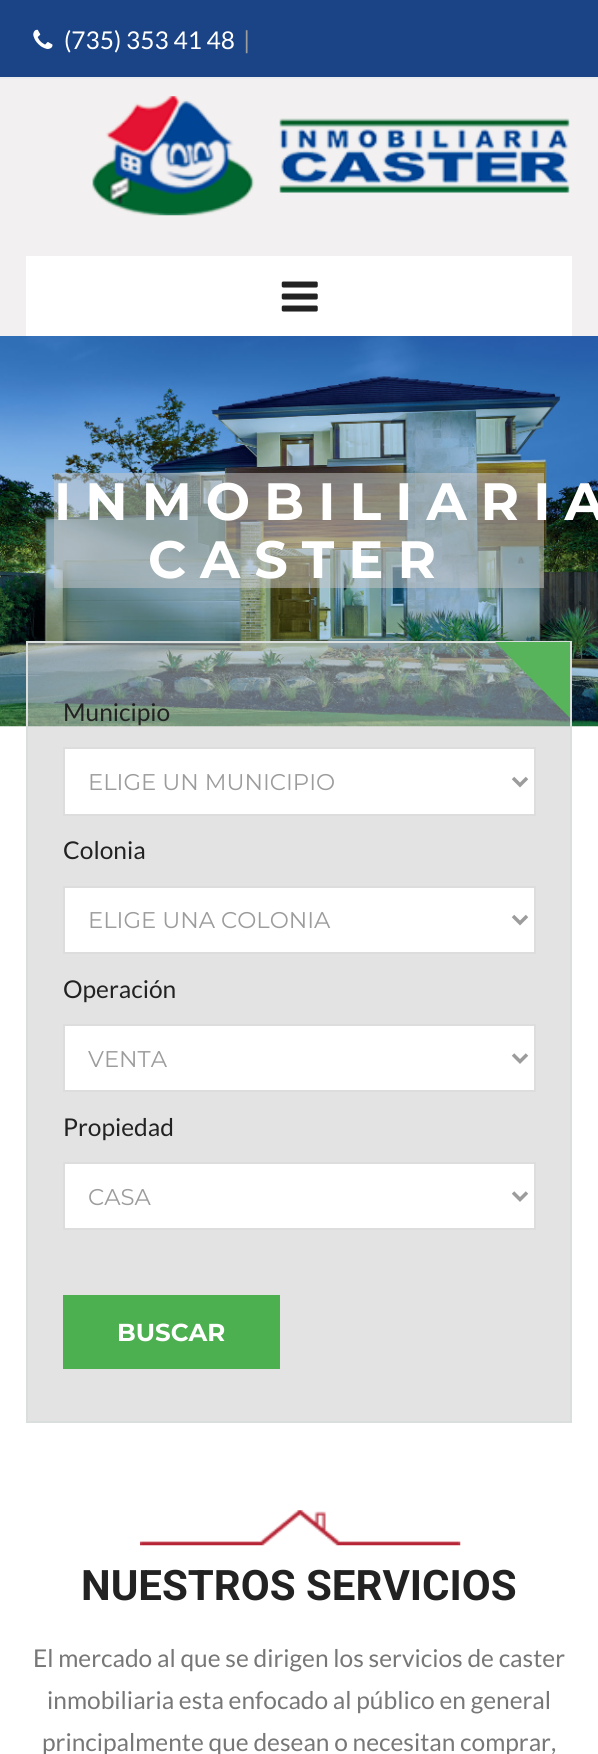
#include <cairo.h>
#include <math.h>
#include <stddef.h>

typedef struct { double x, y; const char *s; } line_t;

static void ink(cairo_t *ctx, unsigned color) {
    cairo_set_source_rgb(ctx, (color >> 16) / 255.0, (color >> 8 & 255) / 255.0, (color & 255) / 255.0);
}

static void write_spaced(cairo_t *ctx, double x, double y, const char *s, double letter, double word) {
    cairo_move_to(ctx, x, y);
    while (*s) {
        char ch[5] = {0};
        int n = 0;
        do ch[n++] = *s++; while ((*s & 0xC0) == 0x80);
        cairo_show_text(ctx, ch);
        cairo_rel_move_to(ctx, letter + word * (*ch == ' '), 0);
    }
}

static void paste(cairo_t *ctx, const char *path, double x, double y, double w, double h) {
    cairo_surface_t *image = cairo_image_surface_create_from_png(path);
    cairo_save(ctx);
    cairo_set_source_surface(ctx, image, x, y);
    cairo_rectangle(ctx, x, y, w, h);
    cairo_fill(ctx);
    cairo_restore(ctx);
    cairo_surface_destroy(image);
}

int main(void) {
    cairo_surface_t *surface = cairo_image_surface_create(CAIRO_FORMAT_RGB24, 598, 1754);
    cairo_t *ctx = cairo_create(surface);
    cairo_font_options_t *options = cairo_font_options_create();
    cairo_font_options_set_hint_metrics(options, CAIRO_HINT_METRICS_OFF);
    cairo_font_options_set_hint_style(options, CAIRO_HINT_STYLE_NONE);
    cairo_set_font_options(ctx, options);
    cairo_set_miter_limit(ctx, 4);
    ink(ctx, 0xFFFFFF);
    cairo_paint(ctx);
    ink(ctx, 0x1B4487);
    cairo_rectangle(ctx, 0, 0, 598, 77);
    cairo_fill(ctx);
    ink(ctx, 0xEAEBEF);
    cairo_rectangle(ctx, 0, 77, 598, 2);
    cairo_fill(ctx);
    paste(ctx, "media/1.png", 33, 29, 20, 20);
    cairo_select_font_face(ctx, "Lato", CAIRO_FONT_SLANT_NORMAL, CAIRO_FONT_WEIGHT_NORMAL);
    cairo_set_font_size(ctx, 24.5);
    ink(ctx, 0xFFFFFF);
    cairo_move_to(ctx, 64, 49);
    cairo_show_text(ctx, "(735) 353 41 48");
    ink(ctx, 0x9C9C9C);
    cairo_move_to(ctx, 243, 49);
    cairo_show_text(ctx, "|");
    ink(ctx, 0xF2F0F0);
    cairo_rectangle(ctx, 0, 79, 598, 257);
    cairo_fill(ctx);
    paste(ctx, "media/2.png", 92, 96, 478, 120);
    ink(ctx, 0xFFFFFF);
    cairo_rectangle(ctx, 26, 256, 546, 80);
    cairo_fill(ctx);
    paste(ctx, "media/3.png", 281, 281, 37, 31);
    paste(ctx, "media/4.png", 0, 336, 598, 391);
    cairo_set_source_rgba(ctx, 0.784, 0.784, 0.784, 0.5);
    cairo_rectangle(ctx, 54, 473, 490, 115);
    cairo_fill(ctx);
    cairo_select_font_face(ctx, "Montserrat", CAIRO_FONT_SLANT_NORMAL, CAIRO_FONT_WEIGHT_BOLD);
    cairo_set_font_size(ctx, 52.5);
    ink(ctx, 0xFFFFFF);
    write_spaced(ctx, 54, 520, "INMOBILIARIA", 14, 0);
    write_spaced(ctx, 148, 578, "CASTER", 14, 0);
    cairo_set_source_rgba(ctx, 0.784, 0.784, 0.784, 0.5);
    cairo_rectangle(ctx, 27, 642, 544, 780);
    cairo_fill_preserve(ctx);
    ink(ctx, 0xDADEDD);
    cairo_stroke(ctx);
    ink(ctx, 0x57B45A);
    cairo_new_path(ctx);
    cairo_move_to(ctx, 570, 642);
    cairo_line_to(ctx, 570, 718);
    cairo_line_to(ctx, 495, 642);
    cairo_close_path(ctx);
    cairo_fill(ctx);
    cairo_select_font_face(ctx, "Lato", CAIRO_FONT_SLANT_NORMAL, CAIRO_FONT_WEIGHT_NORMAL);
    cairo_set_font_size(ctx, 24.5);
    ink(ctx, 0x222222);
    cairo_move_to(ctx, 63, 721);
    cairo_show_text(ctx, "Municipio");
    ink(ctx, 0xFFFFFF);
    cairo_rectangle(ctx, 64, 748, 471, 67);
    cairo_fill_preserve(ctx);
    ink(ctx, 0xDDDDDD);
    cairo_stroke(ctx);
    cairo_new_path(ctx);
    cairo_move_to(ctx, 513, 778);
    cairo_line_to(ctx, 520, 785);
    cairo_line_to(ctx, 527, 778);
    ink(ctx, 0x9C9C9C);
    cairo_set_line_width(ctx, 3.5);
    cairo_stroke(ctx);
    cairo_select_font_face(ctx, "Montserrat", CAIRO_FONT_SLANT_NORMAL, CAIRO_FONT_WEIGHT_NORMAL);
    cairo_set_font_size(ctx, 22.75);
    cairo_move_to(ctx, 88, 790);
    cairo_show_text(ctx, "ELIGE UN MUNICIPIO");
    cairo_select_font_face(ctx, "Lato", CAIRO_FONT_SLANT_NORMAL, CAIRO_FONT_WEIGHT_NORMAL);
    cairo_set_font_size(ctx, 24.5);
    ink(ctx, 0x222222);
    cairo_move_to(ctx, 63, 859);
    cairo_show_text(ctx, "Colonia");
    ink(ctx, 0xFFFFFF);
    cairo_rectangle(ctx, 64, 887, 471, 66);
    cairo_fill_preserve(ctx);
    ink(ctx, 0xDDDDDD);
    cairo_set_line_width(ctx, 2);
    cairo_stroke(ctx);
    cairo_new_path(ctx);
    cairo_move_to(ctx, 513, 916);
    cairo_line_to(ctx, 520, 923);
    cairo_line_to(ctx, 527, 916);
    ink(ctx, 0x9C9C9C);
    cairo_set_line_width(ctx, 3.5);
    cairo_stroke(ctx);
    cairo_select_font_face(ctx, "Montserrat", CAIRO_FONT_SLANT_NORMAL, CAIRO_FONT_WEIGHT_NORMAL);
    cairo_set_font_size(ctx, 22.75);
    cairo_move_to(ctx, 88, 928);
    cairo_show_text(ctx, "ELIGE UNA COLONIA");
    cairo_select_font_face(ctx, "Lato", CAIRO_FONT_SLANT_NORMAL, CAIRO_FONT_WEIGHT_NORMAL);
    cairo_set_font_size(ctx, 24.5);
    ink(ctx, 0x222222);
    cairo_move_to(ctx, 63, 998);
    cairo_show_text(ctx, "Operación");
    ink(ctx, 0xFFFFFF);
    cairo_rectangle(ctx, 64, 1025, 471, 66);
    cairo_fill_preserve(ctx);
    ink(ctx, 0xDDDDDD);
    cairo_set_line_width(ctx, 2);
    cairo_stroke(ctx);
    cairo_new_path(ctx);
    cairo_move_to(ctx, 513, 1054.5);
    cairo_line_to(ctx, 520, 1061.5);
    cairo_line_to(ctx, 527, 1054.5);
    ink(ctx, 0x9C9C9C);
    cairo_set_line_width(ctx, 3.5);
    cairo_stroke(ctx);
    cairo_select_font_face(ctx, "Montserrat", CAIRO_FONT_SLANT_NORMAL, CAIRO_FONT_WEIGHT_NORMAL);
    cairo_set_font_size(ctx, 22.75);
    cairo_move_to(ctx, 88, 1067);
    cairo_show_text(ctx, "VENTA");
    cairo_select_font_face(ctx, "Lato", CAIRO_FONT_SLANT_NORMAL, CAIRO_FONT_WEIGHT_NORMAL);
    cairo_set_font_size(ctx, 24.5);
    ink(ctx, 0x222222);
    cairo_move_to(ctx, 63, 1136);
    cairo_show_text(ctx, "Propiedad");
    ink(ctx, 0xFFFFFF);
    cairo_rectangle(ctx, 64, 1163, 471, 66);
    cairo_fill_preserve(ctx);
    ink(ctx, 0xDDDDDD);
    cairo_set_line_width(ctx, 2);
    cairo_stroke(ctx);
    cairo_new_path(ctx);
    cairo_move_to(ctx, 513, 1192.5);
    cairo_line_to(ctx, 520, 1199.5);
    cairo_line_to(ctx, 527, 1192.5);
    ink(ctx, 0x9C9C9C);
    cairo_set_line_width(ctx, 3.5);
    cairo_stroke(ctx);
    cairo_select_font_face(ctx, "Montserrat", CAIRO_FONT_SLANT_NORMAL, CAIRO_FONT_WEIGHT_NORMAL);
    cairo_set_font_size(ctx, 22.75);
    cairo_move_to(ctx, 88, 1205);
    cairo_show_text(ctx, "CASA");
    ink(ctx, 0x4CAF50);
    cairo_rectangle(ctx, 63, 1295, 217, 74);
    cairo_fill(ctx);
    cairo_select_font_face(ctx, "Montserrat", CAIRO_FONT_SLANT_NORMAL, CAIRO_FONT_WEIGHT_BOLD);
    cairo_set_font_size(ctx, 24.5);
    ink(ctx, 0xFFFFFF);
    cairo_move_to(ctx, 117, 1341);
    cairo_show_text(ctx, "BUSCAR");
    paste(ctx, "media/5.png", 140, 1510, 321, 36);
    cairo_select_font_face(ctx, "Roboto", CAIRO_FONT_SLANT_NORMAL, CAIRO_FONT_WEIGHT_BOLD);
    cairo_set_font_size(ctx, 42);
    ink(ctx, 0x222222);
    cairo_move_to(ctx, 81, 1600);
    cairo_show_text(ctx, "NUESTROS SERVICIOS");
    cairo_select_font_face(ctx, "Lato", CAIRO_FONT_SLANT_NORMAL, CAIRO_FONT_WEIGHT_NORMAL);
    cairo_set_font_size(ctx, 24.5);
    ink(ctx, 0x777777);
    {
        static const line_t items[] = {
            {33, 1667, "El mercado al que se dirigen los servicios de caster"},
            {47, 1709, "inmobiliaria esta enfocado al público en general"},
            {42, 1751, "principalmente que desean o necesitan comprar,"},
        };
        for (size_t i = 0; i < sizeof items / sizeof *items; i++) {
            cairo_move_to(ctx, items[i].x, items[i].y);
            cairo_show_text(ctx, items[i].s);
        }
    }
    cairo_surface_write_to_png(surface, "image.png");
    cairo_font_options_destroy(options);
    cairo_destroy(ctx);
    cairo_surface_destroy(surface);
    return 0;
}
